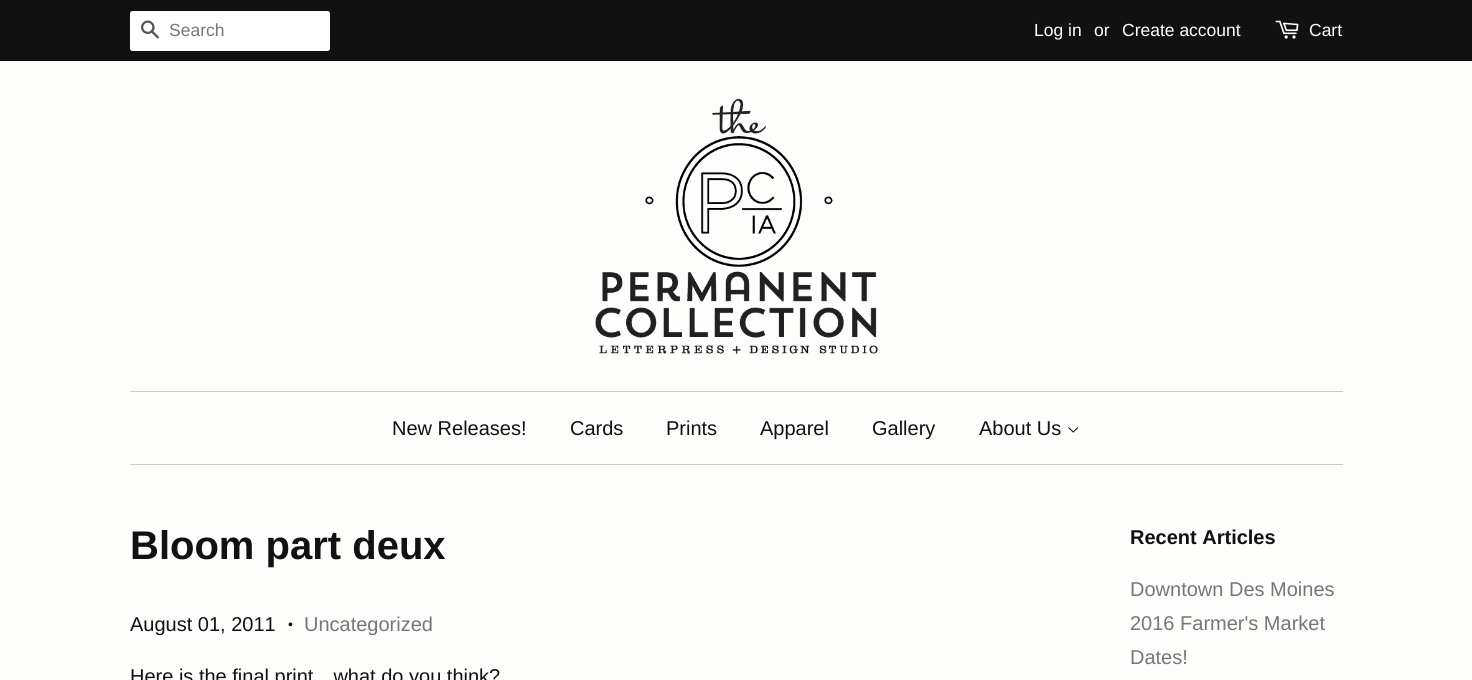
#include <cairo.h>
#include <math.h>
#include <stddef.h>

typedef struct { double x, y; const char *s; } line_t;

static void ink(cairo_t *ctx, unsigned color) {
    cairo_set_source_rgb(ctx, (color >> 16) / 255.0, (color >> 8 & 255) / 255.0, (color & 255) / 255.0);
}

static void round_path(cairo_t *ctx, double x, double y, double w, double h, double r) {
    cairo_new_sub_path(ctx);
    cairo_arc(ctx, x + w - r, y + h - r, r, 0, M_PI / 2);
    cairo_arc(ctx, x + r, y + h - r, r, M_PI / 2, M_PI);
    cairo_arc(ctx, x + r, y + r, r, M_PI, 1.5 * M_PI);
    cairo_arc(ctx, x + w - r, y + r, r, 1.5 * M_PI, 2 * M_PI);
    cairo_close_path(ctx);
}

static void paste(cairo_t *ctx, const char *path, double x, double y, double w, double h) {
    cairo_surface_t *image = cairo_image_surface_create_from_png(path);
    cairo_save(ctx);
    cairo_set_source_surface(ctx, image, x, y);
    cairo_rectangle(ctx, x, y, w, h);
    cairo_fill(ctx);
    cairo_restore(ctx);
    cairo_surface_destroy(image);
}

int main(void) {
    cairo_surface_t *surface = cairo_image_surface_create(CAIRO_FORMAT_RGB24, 1472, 680);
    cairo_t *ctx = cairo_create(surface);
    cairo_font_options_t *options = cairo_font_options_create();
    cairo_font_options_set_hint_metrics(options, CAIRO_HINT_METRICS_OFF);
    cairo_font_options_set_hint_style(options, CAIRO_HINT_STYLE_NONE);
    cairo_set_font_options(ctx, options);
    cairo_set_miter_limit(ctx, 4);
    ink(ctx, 0xFDFDFC);
    cairo_paint(ctx);
    ink(ctx, 0x111111);
    cairo_rectangle(ctx, 0, 0, 1472, 61);
    cairo_fill(ctx);
    ink(ctx, 0xFFFFFF);
    round_path(ctx, 130, 11, 200, 40, 2.5);
    cairo_fill(ctx);
    paste(ctx, "media/1.png", 141, 20, 18, 19);
    cairo_select_font_face(ctx, "Liberation Sans", CAIRO_FONT_SLANT_NORMAL, CAIRO_FONT_WEIGHT_NORMAL);
    cairo_set_font_size(ctx, 17.5);
    ink(ctx, 0x767676);
    cairo_move_to(ctx, 169, 36);
    cairo_show_text(ctx, "Search");
    ink(ctx, 0xFFFFFF);
    {
        static const line_t items[] = {
            {1034, 36, "Log in"},
            {1094, 36, "or"},
            {1122, 36, "Create account"},
        };
        for (size_t i = 0; i < sizeof items / sizeof *items; i++) {
            cairo_move_to(ctx, items[i].x, items[i].y);
            cairo_show_text(ctx, items[i].s);
        }
    }
    paste(ctx, "media/2.png", 1275, 20, 24, 19);
    cairo_move_to(ctx, 1309, 36);
    cairo_show_text(ctx, "Cart");
    paste(ctx, "media/3.png", 595, 98, 283, 256);
    ink(ctx, 0xCCCCCC);
    cairo_rectangle(ctx, 130, 391, 1213, 1);
    cairo_fill(ctx);
    cairo_rectangle(ctx, 130, 464, 1213, 1);
    cairo_fill(ctx);
    cairo_set_font_size(ctx, 20);
    ink(ctx, 0x111111);
    {
        static const line_t items[] = {
            {392, 435, "New Releases!"},
            {570, 435, "Cards"},
            {666, 435, "Prints"},
            {760, 435, "Apparel"},
            {872, 435, "Gallery"},
            {979, 435, "About Us"},
        };
        for (size_t i = 0; i < sizeof items / sizeof *items; i++) {
            cairo_move_to(ctx, items[i].x, items[i].y);
            cairo_show_text(ctx, items[i].s);
        }
    }
    paste(ctx, "media/4.png", 1068, 427, 11, 6);
    cairo_select_font_face(ctx, "Liberation Sans", CAIRO_FONT_SLANT_NORMAL, CAIRO_FONT_WEIGHT_BOLD);
    cairo_set_font_size(ctx, 40);
    cairo_move_to(ctx, 130, 559);
    cairo_show_text(ctx, "Bloom part deux");
    cairo_select_font_face(ctx, "Liberation Sans", CAIRO_FONT_SLANT_NORMAL, CAIRO_FONT_WEIGHT_NORMAL);
    cairo_set_font_size(ctx, 20);
    cairo_move_to(ctx, 130, 631);
    cairo_show_text(ctx, "August 01, 2011");
    cairo_set_font_size(ctx, 14);
    cairo_move_to(ctx, 288, 629);
    cairo_show_text(ctx, "•");
    cairo_set_font_size(ctx, 20);
    ink(ctx, 0x767676);
    cairo_move_to(ctx, 304, 631);
    cairo_show_text(ctx, "Uncategorized");
    ink(ctx, 0x111111);
    cairo_move_to(ctx, 130, 683);
    cairo_show_text(ctx, "Here is the final print…what do you think?");
    cairo_select_font_face(ctx, "Liberation Sans", CAIRO_FONT_SLANT_NORMAL, CAIRO_FONT_WEIGHT_BOLD);
    cairo_move_to(ctx, 1130, 544);
    cairo_show_text(ctx, "Recent Articles");
    cairo_select_font_face(ctx, "Liberation Sans", CAIRO_FONT_SLANT_NORMAL, CAIRO_FONT_WEIGHT_NORMAL);
    ink(ctx, 0x767676);
    {
        static const line_t items[] = {
            {1130, 596, "Downtown Des Moines"},
            {1130, 630, "2016 Farmer's Market"},
            {1130, 664, "Dates!"},
        };
        for (size_t i = 0; i < sizeof items / sizeof *items; i++) {
            cairo_move_to(ctx, items[i].x, items[i].y);
            cairo_show_text(ctx, items[i].s);
        }
    }
    cairo_surface_write_to_png(surface, "image.png");
    cairo_font_options_destroy(options);
    cairo_destroy(ctx);
    cairo_surface_destroy(surface);
    return 0;
}
